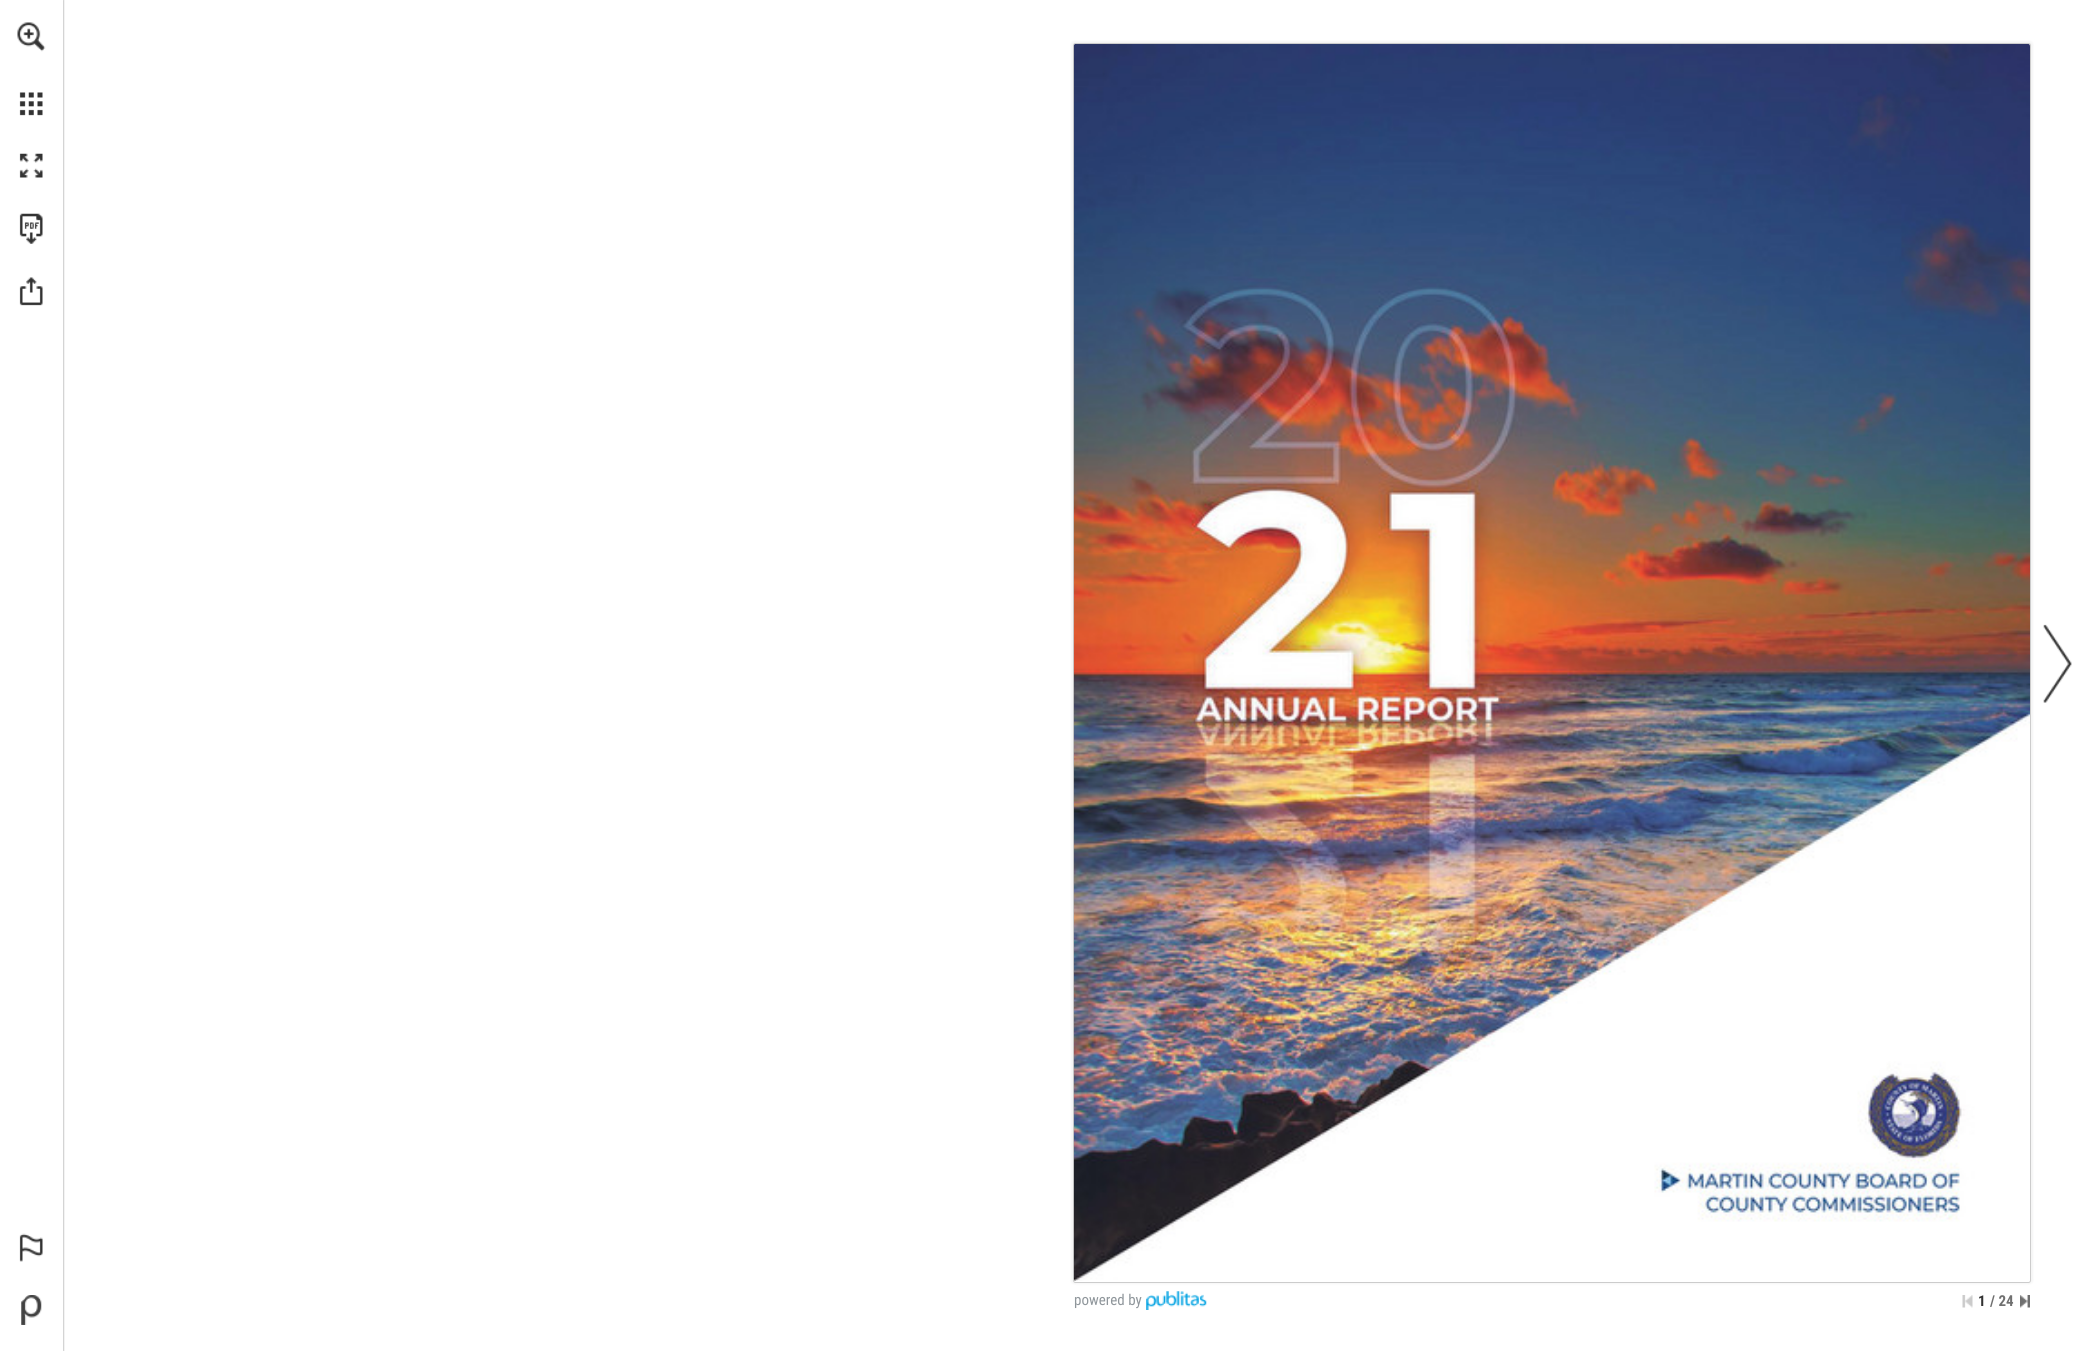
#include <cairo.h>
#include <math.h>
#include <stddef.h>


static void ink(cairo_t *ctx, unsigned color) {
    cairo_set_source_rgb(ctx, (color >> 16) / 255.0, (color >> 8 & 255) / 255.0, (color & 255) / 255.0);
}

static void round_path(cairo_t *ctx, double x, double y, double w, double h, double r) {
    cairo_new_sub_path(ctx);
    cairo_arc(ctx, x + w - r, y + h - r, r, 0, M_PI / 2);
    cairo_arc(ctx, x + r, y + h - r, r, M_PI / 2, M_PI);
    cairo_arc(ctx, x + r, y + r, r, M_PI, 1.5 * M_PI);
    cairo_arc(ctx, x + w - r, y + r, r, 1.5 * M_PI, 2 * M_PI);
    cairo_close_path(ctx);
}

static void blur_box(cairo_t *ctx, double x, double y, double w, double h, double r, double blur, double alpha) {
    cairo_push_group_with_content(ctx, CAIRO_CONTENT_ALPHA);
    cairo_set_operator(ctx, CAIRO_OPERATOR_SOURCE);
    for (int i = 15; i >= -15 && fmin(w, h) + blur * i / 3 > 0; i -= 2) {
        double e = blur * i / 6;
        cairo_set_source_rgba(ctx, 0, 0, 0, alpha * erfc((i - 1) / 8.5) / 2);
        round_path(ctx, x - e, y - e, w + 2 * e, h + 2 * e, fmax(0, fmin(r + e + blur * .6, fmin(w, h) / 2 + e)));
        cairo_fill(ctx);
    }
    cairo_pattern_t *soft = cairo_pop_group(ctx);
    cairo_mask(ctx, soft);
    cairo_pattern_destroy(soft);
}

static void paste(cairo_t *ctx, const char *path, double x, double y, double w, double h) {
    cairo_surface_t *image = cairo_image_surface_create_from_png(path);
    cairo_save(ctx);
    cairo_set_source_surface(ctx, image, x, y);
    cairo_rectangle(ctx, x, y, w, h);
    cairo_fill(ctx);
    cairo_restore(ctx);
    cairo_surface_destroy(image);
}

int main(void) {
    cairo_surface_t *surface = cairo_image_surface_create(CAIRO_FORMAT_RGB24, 2085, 1351);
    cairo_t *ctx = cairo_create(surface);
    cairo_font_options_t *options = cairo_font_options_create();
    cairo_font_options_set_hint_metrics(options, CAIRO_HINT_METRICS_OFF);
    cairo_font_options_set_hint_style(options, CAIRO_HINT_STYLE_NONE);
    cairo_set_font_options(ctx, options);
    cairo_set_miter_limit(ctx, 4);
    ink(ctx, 0xFFFFFF);
    cairo_paint(ctx);
    ink(ctx, 0x000000);
    blur_box(ctx, 1, 0, 63, 1351, 0, 0.5, 0.2);
    ink(ctx, 0xFFFFFF);
    cairo_rectangle(ctx, 0, 0, 63, 1351);
    cairo_fill(ctx);
    paste(ctx, "media/1.png", 17, 22, 29, 30);
    paste(ctx, "media/2.png", 19, 92, 24, 24);
    paste(ctx, "media/3.png", 19, 153, 24, 25);
    paste(ctx, "media/4.png", 19, 213, 24, 31);
    paste(ctx, "media/5.png", 19, 277, 24, 29);
    paste(ctx, "media/6.png", 19, 1233, 24, 29);
    paste(ctx, "media/7.png", 21, 1295, 21, 30);
    ink(ctx, 0x121212);
    blur_box(ctx, 1071, 41, 962, 1243, 4, 1, 0.05);
    ink(ctx, 0xFFFFFF);
    round_path(ctx, 1073.5, 43.5, 957, 1239, 2);
    cairo_fill_preserve(ctx);
    ink(ctx, 0xCCCCCC);
    cairo_set_line_width(ctx, 1);
    cairo_stroke(ctx);
    paste(ctx, "media/8.png", 1073, 44, 957, 1237);
    paste(ctx, "media/9.png", 1146, 1291, 61, 19);
    cairo_select_font_face(ctx, "Roboto Condensed", CAIRO_FONT_SLANT_NORMAL, CAIRO_FONT_WEIGHT_NORMAL);
    cairo_set_font_size(ctx, 15);
    ink(ctx, 0x8F969B);
    cairo_move_to(ctx, 1074, 1305);
    cairo_show_text(ctx, "powered by");
    paste(ctx, "media/10.png", 2043, 624, 29, 79);
    paste(ctx, "media/11.png", 1962, 1295, 11, 13);
    cairo_select_font_face(ctx, "Roboto Condensed", CAIRO_FONT_SLANT_NORMAL, CAIRO_FONT_WEIGHT_BOLD);
    ink(ctx, 0x333333);
    cairo_move_to(ctx, 1978, 1306);
    cairo_show_text(ctx, "1");
    ink(ctx, 0x707070);
    cairo_move_to(ctx, 1990, 1306);
    cairo_show_text(ctx, "/ 24");
    paste(ctx, "media/12.png", 2020, 1295, 10, 13);
    cairo_surface_write_to_png(surface, "image.png");
    cairo_font_options_destroy(options);
    cairo_destroy(ctx);
    cairo_surface_destroy(surface);
    return 0;
}
